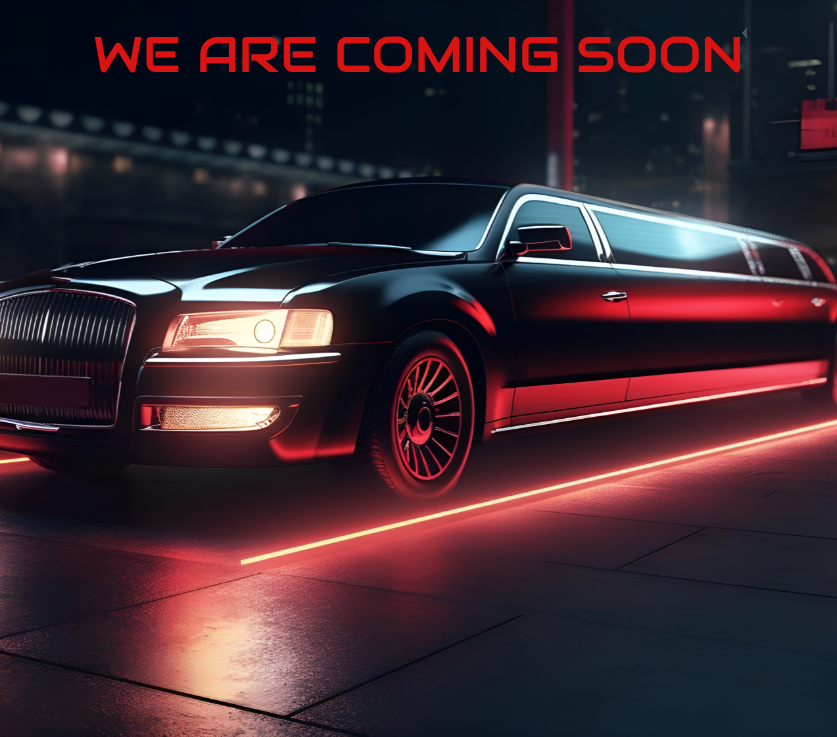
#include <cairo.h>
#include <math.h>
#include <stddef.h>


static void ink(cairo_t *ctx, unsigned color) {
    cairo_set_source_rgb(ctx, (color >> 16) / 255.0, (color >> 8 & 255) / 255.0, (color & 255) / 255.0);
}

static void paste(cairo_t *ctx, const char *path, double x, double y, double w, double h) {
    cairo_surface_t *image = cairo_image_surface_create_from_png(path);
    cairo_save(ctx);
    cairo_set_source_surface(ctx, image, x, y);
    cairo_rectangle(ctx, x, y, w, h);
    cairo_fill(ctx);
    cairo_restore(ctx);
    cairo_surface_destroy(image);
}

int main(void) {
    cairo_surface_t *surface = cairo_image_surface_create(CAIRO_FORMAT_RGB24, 837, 737);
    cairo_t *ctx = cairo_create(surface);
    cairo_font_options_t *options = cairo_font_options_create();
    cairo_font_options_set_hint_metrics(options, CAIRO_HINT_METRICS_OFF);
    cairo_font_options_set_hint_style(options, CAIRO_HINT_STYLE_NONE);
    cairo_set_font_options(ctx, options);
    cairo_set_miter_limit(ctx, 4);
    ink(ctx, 0xFFFFFF);
    cairo_paint(ctx);
    paste(ctx, "media/1.png", 0, 0, 837, 737);
    cairo_select_font_face(ctx, "Audiowide", CAIRO_FONT_SLANT_NORMAL, CAIRO_FONT_WEIGHT_NORMAL);
    cairo_set_font_size(ctx, 50);
    ink(ctx, 0xDB1313);
    cairo_move_to(ctx, 93, 72);
    cairo_show_text(ctx, "WE ARE COMING SOON");
    cairo_surface_write_to_png(surface, "image.png");
    cairo_font_options_destroy(options);
    cairo_destroy(ctx);
    cairo_surface_destroy(surface);
    return 0;
}
